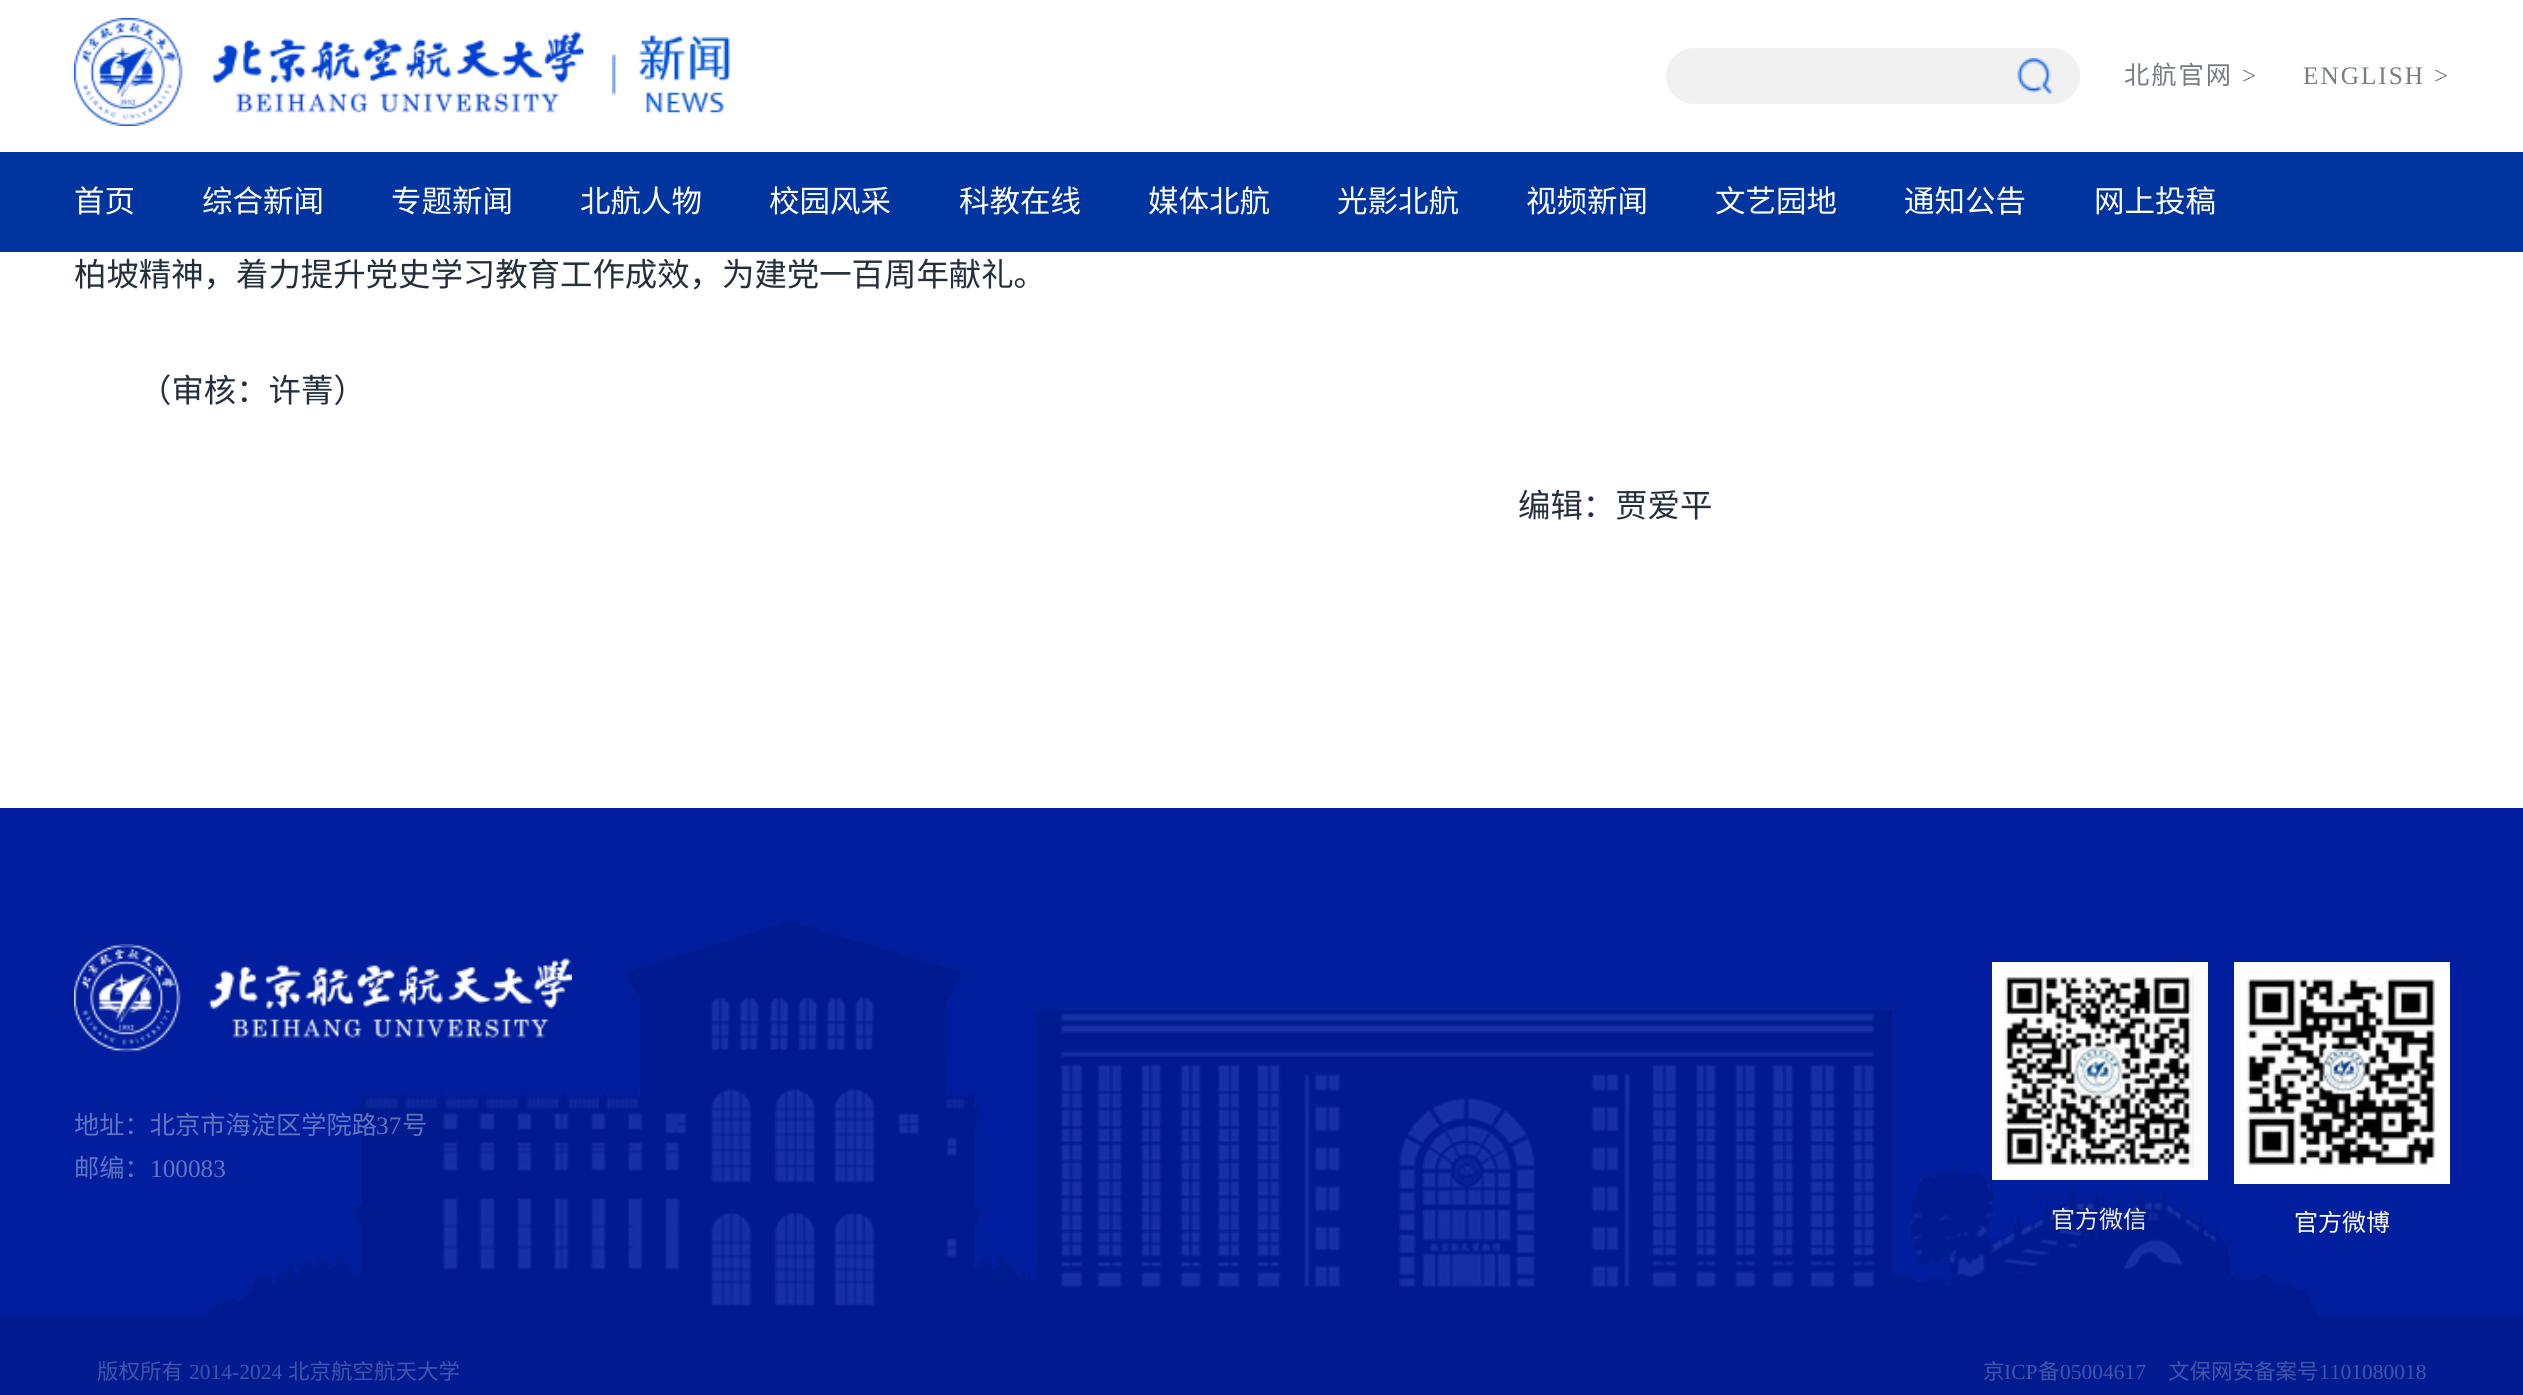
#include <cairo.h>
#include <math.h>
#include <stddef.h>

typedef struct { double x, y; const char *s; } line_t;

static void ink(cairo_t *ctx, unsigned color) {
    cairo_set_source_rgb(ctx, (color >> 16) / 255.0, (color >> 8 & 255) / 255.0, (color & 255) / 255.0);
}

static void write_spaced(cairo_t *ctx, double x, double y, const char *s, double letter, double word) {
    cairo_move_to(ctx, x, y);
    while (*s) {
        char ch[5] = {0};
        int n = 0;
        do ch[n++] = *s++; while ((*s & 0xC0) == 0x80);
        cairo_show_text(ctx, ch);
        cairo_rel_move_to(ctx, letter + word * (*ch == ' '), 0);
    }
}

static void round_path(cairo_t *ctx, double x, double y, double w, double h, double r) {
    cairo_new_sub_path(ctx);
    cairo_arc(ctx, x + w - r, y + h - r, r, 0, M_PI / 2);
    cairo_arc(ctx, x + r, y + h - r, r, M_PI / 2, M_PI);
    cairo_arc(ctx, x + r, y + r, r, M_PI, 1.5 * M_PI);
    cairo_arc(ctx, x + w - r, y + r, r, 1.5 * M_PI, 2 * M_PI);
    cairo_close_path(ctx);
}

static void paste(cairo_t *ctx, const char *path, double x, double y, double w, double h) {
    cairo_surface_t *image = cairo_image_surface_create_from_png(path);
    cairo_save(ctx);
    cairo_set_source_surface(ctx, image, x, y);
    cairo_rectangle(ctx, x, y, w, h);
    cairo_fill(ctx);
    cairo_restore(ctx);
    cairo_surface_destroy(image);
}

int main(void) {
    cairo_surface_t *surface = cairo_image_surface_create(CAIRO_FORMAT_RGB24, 2523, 1395);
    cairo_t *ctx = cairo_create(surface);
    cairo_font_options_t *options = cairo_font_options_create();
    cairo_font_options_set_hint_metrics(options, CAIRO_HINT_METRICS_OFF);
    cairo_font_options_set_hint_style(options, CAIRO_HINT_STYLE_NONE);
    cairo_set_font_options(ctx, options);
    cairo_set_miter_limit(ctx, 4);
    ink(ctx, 0xFFFFFF);
    cairo_paint(ctx);
    paste(ctx, "media/1.png", 74, 18, 510, 108);
    paste(ctx, "media/2.png", 612, 35, 118, 78);
    ink(ctx, 0xF1F1F1);
    round_path(ctx, 1666, 48, 414, 56, 28);
    cairo_fill(ctx);
    paste(ctx, "media/3.png", 2017, 58, 36, 36);
    cairo_select_font_face(ctx, "Noto Sans CJK SC", CAIRO_FONT_SLANT_NORMAL, CAIRO_FONT_WEIGHT_NORMAL);
    cairo_set_font_size(ctx, 25.25);
    ink(ctx, 0x777B83);
    write_spaced(ctx, 2124, 84, "北航官网", 2, 0);
    cairo_select_font_face(ctx, "Liberation Serif", CAIRO_FONT_SLANT_NORMAL, CAIRO_FONT_WEIGHT_NORMAL);
    {
        static const line_t items[] = {
            {2242, 84, ">"},
            {2303, 84, "ENGLISH"},
            {2434, 84, ">"},
        };
        for (size_t i = 0; i < sizeof items / sizeof *items; i++) {
            write_spaced(ctx, items[i].x, items[i].y, items[i].s, 2, 0);
        }
    }
    ink(ctx, 0x00349F);
    cairo_rectangle(ctx, 0, 152, 2523, 100);
    cairo_fill(ctx);
    cairo_select_font_face(ctx, "Noto Sans CJK SC", CAIRO_FONT_SLANT_NORMAL, CAIRO_FONT_WEIGHT_NORMAL);
    cairo_set_font_size(ctx, 30.5);
    ink(ctx, 0xFFFFFF);
    {
        static const line_t items[] = {
            {74, 212, "首页"},
            {202, 212, "综合新闻"},
            {391, 212, "专题新闻"},
            {580, 212, "北航人物"},
            {769, 212, "校园风采"},
            {959, 212, "科教在线"},
            {1148, 212, "媒体北航"},
            {1337, 212, "光影北航"},
            {1526, 212, "视频新闻"},
            {1715, 212, "文艺园地"},
            {1904, 212, "通知公告"},
            {2094, 212, "网上投稿"},
        };
        for (size_t i = 0; i < sizeof items / sizeof *items; i++) {
            cairo_move_to(ctx, items[i].x, items[i].y);
            cairo_show_text(ctx, items[i].s);
        }
    }
    cairo_set_font_size(ctx, 32.4);
    ink(ctx, 0x242E3D);
    {
        static const line_t items[] = {
            {74, 286, "柏坡精神，着力提升党史学习教育工作成效，为建党一百周年献礼。"},
            {139, 402, "（审核：许菁）"},
            {1518, 517, "编辑：贾爱平"},
        };
        for (size_t i = 0; i < sizeof items / sizeof *items; i++) {
            cairo_move_to(ctx, items[i].x, items[i].y);
            cairo_show_text(ctx, items[i].s);
        }
    }
    ink(ctx, 0x001E9D);
    cairo_rectangle(ctx, 0, 808, 2523, 508);
    cairo_fill(ctx);
    ink(ctx, 0xFFFFFF);
    cairo_rectangle(ctx, 1992, 962, 216, 218);
    cairo_fill(ctx);
    paste(ctx, "media/6.png", 2004, 974, 190, 194);
    cairo_set_font_size(ctx, 24);
    cairo_move_to(ctx, 2051, 1228);
    cairo_show_text(ctx, "官方微信");
    cairo_rectangle(ctx, 2234, 962, 216, 222);
    cairo_fill(ctx);
    paste(ctx, "media/7.png", 2246, 974, 190, 196);
    cairo_move_to(ctx, 2294, 1231);
    cairo_show_text(ctx, "官方微博");
    paste(ctx, "media/4.png", 206, 920, 2114, 396);
    paste(ctx, "media/5.png", 74, 944, 498, 108);
    cairo_set_font_size(ctx, 25.25);
    ink(ctx, 0x6173C2);
    cairo_move_to(ctx, 74, 1134);
    cairo_show_text(ctx, "地址：北京市海淀区学院路");
    cairo_select_font_face(ctx, "Liberation Serif", CAIRO_FONT_SLANT_NORMAL, CAIRO_FONT_WEIGHT_NORMAL);
    ink(ctx, 0x6172B9);
    cairo_move_to(ctx, 376, 1134);
    cairo_show_text(ctx, "37");
    cairo_select_font_face(ctx, "Noto Sans CJK SC", CAIRO_FONT_SLANT_NORMAL, CAIRO_FONT_WEIGHT_NORMAL);
    cairo_move_to(ctx, 402, 1134);
    cairo_show_text(ctx, "号");
    ink(ctx, 0x6173C2);
    cairo_move_to(ctx, 74, 1177);
    cairo_show_text(ctx, "邮编：");
    cairo_select_font_face(ctx, "Liberation Serif", CAIRO_FONT_SLANT_NORMAL, CAIRO_FONT_WEIGHT_NORMAL);
    cairo_move_to(ctx, 150, 1177);
    cairo_show_text(ctx, "100083");
    ink(ctx, 0x001B8F);
    cairo_rectangle(ctx, 0, 1316, 2523, 79);
    cairo_fill(ctx);
    cairo_select_font_face(ctx, "Noto Sans CJK SC", CAIRO_FONT_SLANT_NORMAL, CAIRO_FONT_WEIGHT_NORMAL);
    cairo_set_font_size(ctx, 21.5);
    ink(ctx, 0x4054AB);
    cairo_move_to(ctx, 97, 1379);
    cairo_show_text(ctx, "版权所有");
    cairo_select_font_face(ctx, "Liberation Serif", CAIRO_FONT_SLANT_NORMAL, CAIRO_FONT_WEIGHT_NORMAL);
    cairo_move_to(ctx, 189, 1379);
    cairo_show_text(ctx, "2014-2024");
    cairo_select_font_face(ctx, "Noto Sans CJK SC", CAIRO_FONT_SLANT_NORMAL, CAIRO_FONT_WEIGHT_NORMAL);
    cairo_move_to(ctx, 288, 1379);
    cairo_show_text(ctx, "北京航空航天大学");
    cairo_move_to(ctx, 1983, 1379);
    cairo_show_text(ctx, "京");
    cairo_select_font_face(ctx, "Liberation Serif", CAIRO_FONT_SLANT_NORMAL, CAIRO_FONT_WEIGHT_NORMAL);
    cairo_move_to(ctx, 2004, 1379);
    cairo_show_text(ctx, "ICP");
    cairo_select_font_face(ctx, "Noto Sans CJK SC", CAIRO_FONT_SLANT_NORMAL, CAIRO_FONT_WEIGHT_NORMAL);
    cairo_move_to(ctx, 2038, 1379);
    cairo_show_text(ctx, "备");
    cairo_select_font_face(ctx, "Liberation Serif", CAIRO_FONT_SLANT_NORMAL, CAIRO_FONT_WEIGHT_NORMAL);
    cairo_move_to(ctx, 2060, 1379);
    cairo_show_text(ctx, "05004617");
    cairo_select_font_face(ctx, "Noto Sans CJK SC", CAIRO_FONT_SLANT_NORMAL, CAIRO_FONT_WEIGHT_NORMAL);
    cairo_move_to(ctx, 2168, 1379);
    cairo_show_text(ctx, "文保网安备案号");
    cairo_select_font_face(ctx, "Liberation Serif", CAIRO_FONT_SLANT_NORMAL, CAIRO_FONT_WEIGHT_NORMAL);
    cairo_move_to(ctx, 2319, 1379);
    cairo_show_text(ctx, "1101080018");
    cairo_surface_write_to_png(surface, "image.png");
    cairo_font_options_destroy(options);
    cairo_destroy(ctx);
    cairo_surface_destroy(surface);
    return 0;
}
